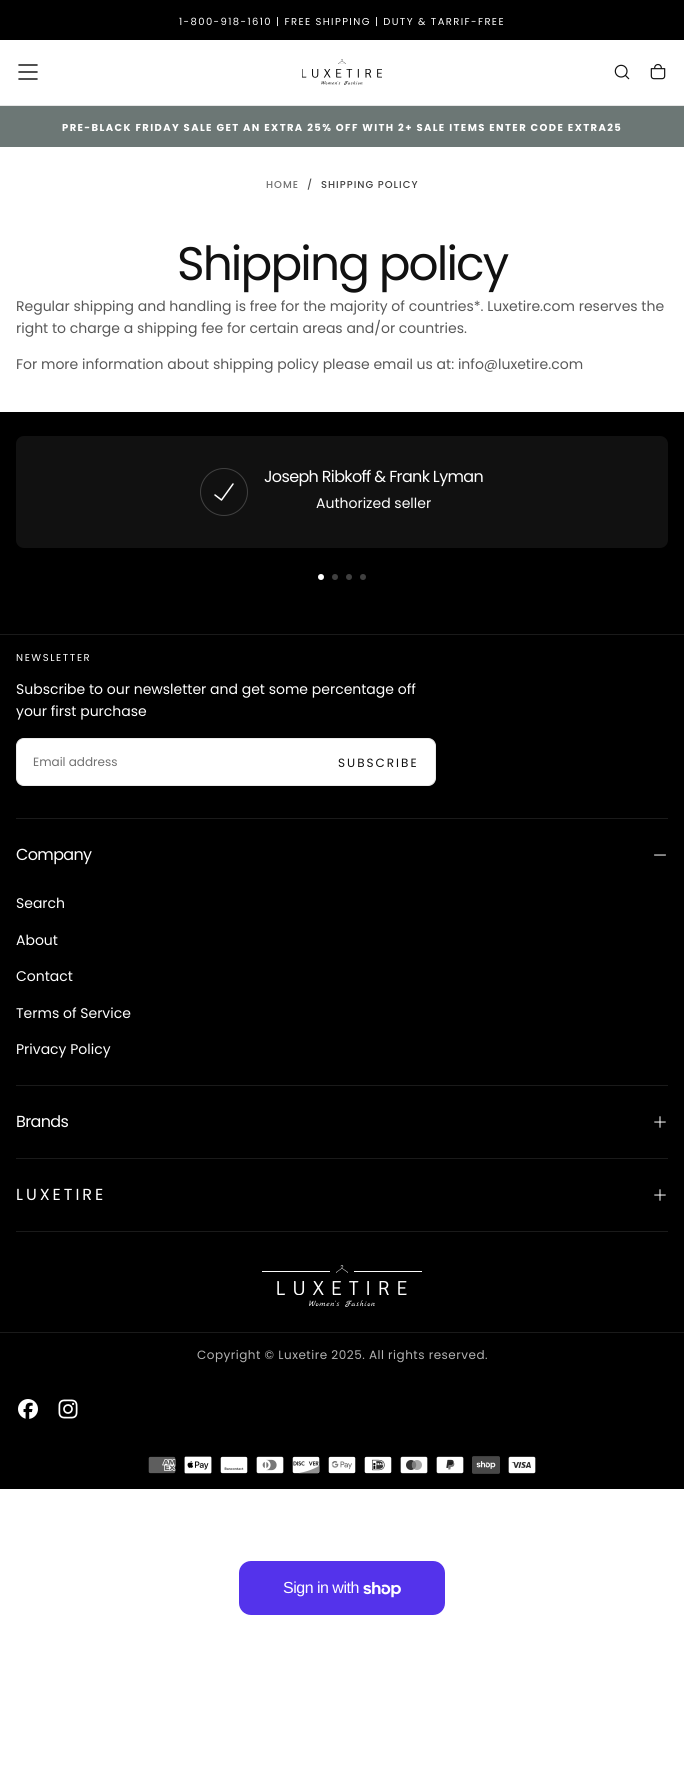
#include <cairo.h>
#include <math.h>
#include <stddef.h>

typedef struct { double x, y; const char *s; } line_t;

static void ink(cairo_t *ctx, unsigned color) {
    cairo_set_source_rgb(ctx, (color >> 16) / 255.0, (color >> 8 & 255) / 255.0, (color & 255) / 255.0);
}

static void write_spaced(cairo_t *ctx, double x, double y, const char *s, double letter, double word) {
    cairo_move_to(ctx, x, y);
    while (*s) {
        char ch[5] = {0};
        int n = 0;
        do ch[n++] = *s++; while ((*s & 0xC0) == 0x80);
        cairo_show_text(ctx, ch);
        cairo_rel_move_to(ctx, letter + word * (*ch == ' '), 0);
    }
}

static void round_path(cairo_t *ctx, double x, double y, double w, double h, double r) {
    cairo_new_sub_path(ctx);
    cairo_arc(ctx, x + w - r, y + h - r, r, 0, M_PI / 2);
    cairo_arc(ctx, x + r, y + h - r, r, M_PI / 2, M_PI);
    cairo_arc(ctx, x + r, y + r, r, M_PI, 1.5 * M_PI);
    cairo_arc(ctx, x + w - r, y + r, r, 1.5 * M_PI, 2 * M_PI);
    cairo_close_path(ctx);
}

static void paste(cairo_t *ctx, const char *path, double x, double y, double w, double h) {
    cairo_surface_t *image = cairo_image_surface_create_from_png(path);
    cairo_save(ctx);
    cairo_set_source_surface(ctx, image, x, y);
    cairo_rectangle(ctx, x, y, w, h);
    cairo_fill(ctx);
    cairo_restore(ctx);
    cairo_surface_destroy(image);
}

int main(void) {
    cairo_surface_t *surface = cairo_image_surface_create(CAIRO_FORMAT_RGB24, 684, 1765);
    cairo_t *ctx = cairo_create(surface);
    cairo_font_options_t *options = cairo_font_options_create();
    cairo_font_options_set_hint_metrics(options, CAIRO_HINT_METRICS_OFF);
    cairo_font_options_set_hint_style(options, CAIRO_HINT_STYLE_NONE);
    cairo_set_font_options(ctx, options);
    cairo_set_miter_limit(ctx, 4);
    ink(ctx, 0xFFFFFF);
    cairo_paint(ctx);
    ink(ctx, 0x000000);
    cairo_rectangle(ctx, 0, 0, 684, 40);
    cairo_fill(ctx);
    cairo_select_font_face(ctx, "Poppins", CAIRO_FONT_SLANT_NORMAL, CAIRO_FONT_WEIGHT_NORMAL);
    cairo_set_font_size(ctx, 10);
    ink(ctx, 0xFFFFFF);
    write_spaced(ctx, 179, 25, "1-800-918-1610 | FREE SHIPPING | DUTY & TARRIF-FREE", 1.4, 0);
    ink(ctx, 0xE7E7E7);
    cairo_rectangle(ctx, 0, 105, 684, 1);
    cairo_fill(ctx);
    cairo_new_path(ctx);
    cairo_move_to(ctx, 19, 72);
    cairo_line_to(ctx, 37, 72);
    cairo_move_to(ctx, 19, 65);
    cairo_line_to(ctx, 37, 65);
    cairo_move_to(ctx, 19, 79);
    cairo_line_to(ctx, 37, 79);
    ink(ctx, 0x111111);
    cairo_set_line_width(ctx, 1.5);
    cairo_set_line_cap(ctx, CAIRO_LINE_CAP_ROUND);
    cairo_stroke(ctx);
    paste(ctx, "media/1.png", 302, 59, 80, 26);
    paste(ctx, "media/2.png", 614, 64, 16, 16);
    paste(ctx, "media/3.png", 650, 63, 16, 17);
    ink(ctx, 0x6C7775);
    cairo_rectangle(ctx, 0, 106, 684, 41);
    cairo_fill(ctx);
    cairo_select_font_face(ctx, "Poppins", CAIRO_FONT_SLANT_NORMAL, CAIRO_FONT_WEIGHT_BOLD);
    ink(ctx, 0xFFFFFF);
    write_spaced(ctx, 62, 131, "PRE-BLACK FRIDAY SALE GET AN EXTRA 25% OFF WITH 2+ SALE ITEMS ENTER CODE EXTRA25", 1.4, 0);
    cairo_select_font_face(ctx, "Poppins Medium", CAIRO_FONT_SLANT_NORMAL, CAIRO_FONT_WEIGHT_NORMAL);
    ink(ctx, 0x707070);
    write_spaced(ctx, 266, 188, "HOME", 1, 0);
    ink(ctx, 0x4D4D4D);
    write_spaced(ctx, 307, 188, "/", 1, 0);
    ink(ctx, 0x414141);
    write_spaced(ctx, 321, 188, "SHIPPING POLICY", 1, 0);
    cairo_select_font_face(ctx, "Poppins", CAIRO_FONT_SLANT_NORMAL, CAIRO_FONT_WEIGHT_NORMAL);
    cairo_set_font_size(ctx, 47);
    ink(ctx, 0x111111);
    write_spaced(ctx, 177, 280, "Shipping policy", -1.9, 0);
    cairo_set_font_size(ctx, 14);
    ink(ctx, 0x585858);
    {
        static const line_t items[] = {
            {16, 311, "Regular shipping and handling is free for the majority of countries*. Luxetire.com reserves the"},
            {16, 333, "right to charge a shipping fee for certain areas and/or countries."},
            {16, 369, "For more information about shipping policy please email us at: info@luxetire.com"},
        };
        for (size_t i = 0; i < sizeof items / sizeof *items; i++) {
            cairo_move_to(ctx, items[i].x, items[i].y);
            cairo_show_text(ctx, items[i].s);
        }
    }
    ink(ctx, 0x000000);
    cairo_rectangle(ctx, 0, 412, 684, 1077);
    cairo_fill(ctx);
    ink(ctx, 0x111111);
    round_path(ctx, 16, 436, 652, 112, 8);
    cairo_fill(ctx);
    cairo_arc(ctx, 224, 492, 23.5, 0, 2 * M_PI);
    ink(ctx, 0x414141);
    cairo_set_line_width(ctx, 1);
    cairo_set_line_cap(ctx, CAIRO_LINE_CAP_BUTT);
    cairo_stroke(ctx);
    cairo_new_path(ctx);
    cairo_move_to(ctx, 215, 495);
    cairo_line_to(ctx, 221.5, 500);
    cairo_line_to(ctx, 233, 484);
    ink(ctx, 0xFFFFFF);
    cairo_set_line_width(ctx, 1.5);
    cairo_set_line_cap(ctx, CAIRO_LINE_CAP_ROUND);
    cairo_set_line_join(ctx, CAIRO_LINE_JOIN_ROUND);
    cairo_stroke(ctx);
    cairo_set_font_size(ctx, 16);
    write_spaced(ctx, 264, 482, "Joseph Ribkoff & Frank Lyman", -0.65, 0);
    cairo_set_font_size(ctx, 14);
    cairo_move_to(ctx, 316, 508);
    cairo_show_text(ctx, "Authorized seller");
    cairo_new_path(ctx);
    cairo_arc(ctx, 321, 577, 3, 0, 2 * M_PI);
    cairo_fill(ctx);
    ink(ctx, 0x404040);
    cairo_arc(ctx, 335, 577, 3, 0, 2 * M_PI);
    cairo_fill(ctx);
    cairo_arc(ctx, 349, 577, 3, 0, 2 * M_PI);
    cairo_fill(ctx);
    cairo_arc(ctx, 363, 577, 3, 0, 2 * M_PI);
    cairo_fill(ctx);
    ink(ctx, 0x1A1A1A);
    cairo_rectangle(ctx, 0, 634, 684, 1);
    cairo_fill(ctx);
    cairo_set_font_size(ctx, 10);
    ink(ctx, 0xFFFFFF);
    write_spaced(ctx, 16, 661, "NEWSLETTER", 1.6, 0);
    cairo_set_font_size(ctx, 14);
    cairo_move_to(ctx, 16, 694);
    cairo_show_text(ctx, "Subscribe to our newsletter and get some percentage off");
    cairo_move_to(ctx, 16, 716);
    cairo_show_text(ctx, "your first purchase");
    round_path(ctx, 16.5, 738.5, 419, 47, 7.5);
    cairo_fill_preserve(ctx);
    ink(ctx, 0xEBEBEB);
    cairo_set_line_width(ctx, 1);
    cairo_set_line_cap(ctx, CAIRO_LINE_CAP_BUTT);
    cairo_set_line_join(ctx, CAIRO_LINE_JOIN_MITER);
    cairo_stroke(ctx);
    cairo_set_font_size(ctx, 12);
    ink(ctx, 0x707070);
    cairo_move_to(ctx, 33, 766);
    cairo_show_text(ctx, "Email address");
    ink(ctx, 0x111111);
    write_spaced(ctx, 338, 767, "SUBSCRIBE", 2, 0);
    ink(ctx, 0x1A1A1A);
    cairo_rectangle(ctx, 16, 818, 652, 1);
    cairo_fill(ctx);
    cairo_rectangle(ctx, 16, 1085, 652, 1);
    cairo_fill(ctx);
    cairo_set_font_size(ctx, 16);
    ink(ctx, 0xFFFFFF);
    write_spaced(ctx, 16, 860, "Company", -0.65, 0);
    cairo_new_path(ctx);
    cairo_move_to(ctx, 654.5, 855);
    cairo_line_to(ctx, 665.5, 855);
    cairo_set_line_cap(ctx, CAIRO_LINE_CAP_ROUND);
    cairo_stroke(ctx);
    cairo_set_font_size(ctx, 14);
    {
        static const line_t items[] = {
            {16, 908, "Search"},
            {16, 945, "About"},
            {16, 981, "Contact"},
            {16, 1018, "Terms of Service"},
            {16, 1054, "Privacy Policy"},
        };
        for (size_t i = 0; i < sizeof items / sizeof *items; i++) {
            cairo_move_to(ctx, items[i].x, items[i].y);
            cairo_show_text(ctx, items[i].s);
        }
    }
    ink(ctx, 0x1A1A1A);
    cairo_rectangle(ctx, 16, 1158, 652, 1);
    cairo_fill(ctx);
    cairo_set_font_size(ctx, 16);
    ink(ctx, 0xFFFFFF);
    write_spaced(ctx, 16, 1127, "Brands", -0.65, 0);
    paste(ctx, "media/4.png", 654, 1116, 12, 12);
    ink(ctx, 0x1A1A1A);
    cairo_rectangle(ctx, 16, 1231, 652, 1);
    cairo_fill(ctx);
    ink(ctx, 0xFFFFFF);
    write_spaced(ctx, 16, 1200, "L U X E T I R E", -0.65, 0);
    paste(ctx, "media/4.png", 654, 1189, 12, 12);
    paste(ctx, "media/5.png", 262, 1265, 160, 42);
    ink(ctx, 0x1A1A1A);
    cairo_rectangle(ctx, 0, 1332, 684, 1);
    cairo_fill(ctx);
    cairo_set_font_size(ctx, 12);
    ink(ctx, 0xB3B3B3);
    write_spaced(ctx, 197, 1359, "Copyright © Luxetire 2025. All rights reserved.", 0.5, 0);
    paste(ctx, "media/6.png", 18, 1399, 20, 20);
    paste(ctx, "media/7.png", 58, 1399, 20, 20);
    paste(ctx, "media/8.png", 148, 1456, 28, 18);
    paste(ctx, "media/9.png", 184, 1456, 28, 18);
    paste(ctx, "media/10.png", 220, 1456, 28, 18);
    paste(ctx, "media/11.png", 256, 1456, 28, 18);
    paste(ctx, "media/12.png", 292, 1456, 28, 18);
    paste(ctx, "media/13.png", 328, 1456, 28, 18);
    paste(ctx, "media/14.png", 364, 1456, 28, 18);
    paste(ctx, "media/15.png", 400, 1456, 28, 18);
    paste(ctx, "media/16.png", 436, 1456, 28, 18);
    paste(ctx, "media/17.png", 472, 1456, 28, 18);
    paste(ctx, "media/18.png", 508, 1456, 28, 18);
    ink(ctx, 0x5433EB);
    round_path(ctx, 239, 1561, 206, 54, 12);
    cairo_fill(ctx);
    cairo_select_font_face(ctx, "Liberation Sans", CAIRO_FONT_SLANT_NORMAL, CAIRO_FONT_WEIGHT_NORMAL);
    cairo_set_font_size(ctx, 16);
    ink(ctx, 0xFFFFFF);
    write_spaced(ctx, 283, 1593, "Sign in with", -0.5, 0);
    paste(ctx, "media/19.png", 363, 1582, 38, 16);
    cairo_surface_write_to_png(surface, "image.png");
    cairo_font_options_destroy(options);
    cairo_destroy(ctx);
    cairo_surface_destroy(surface);
    return 0;
}
